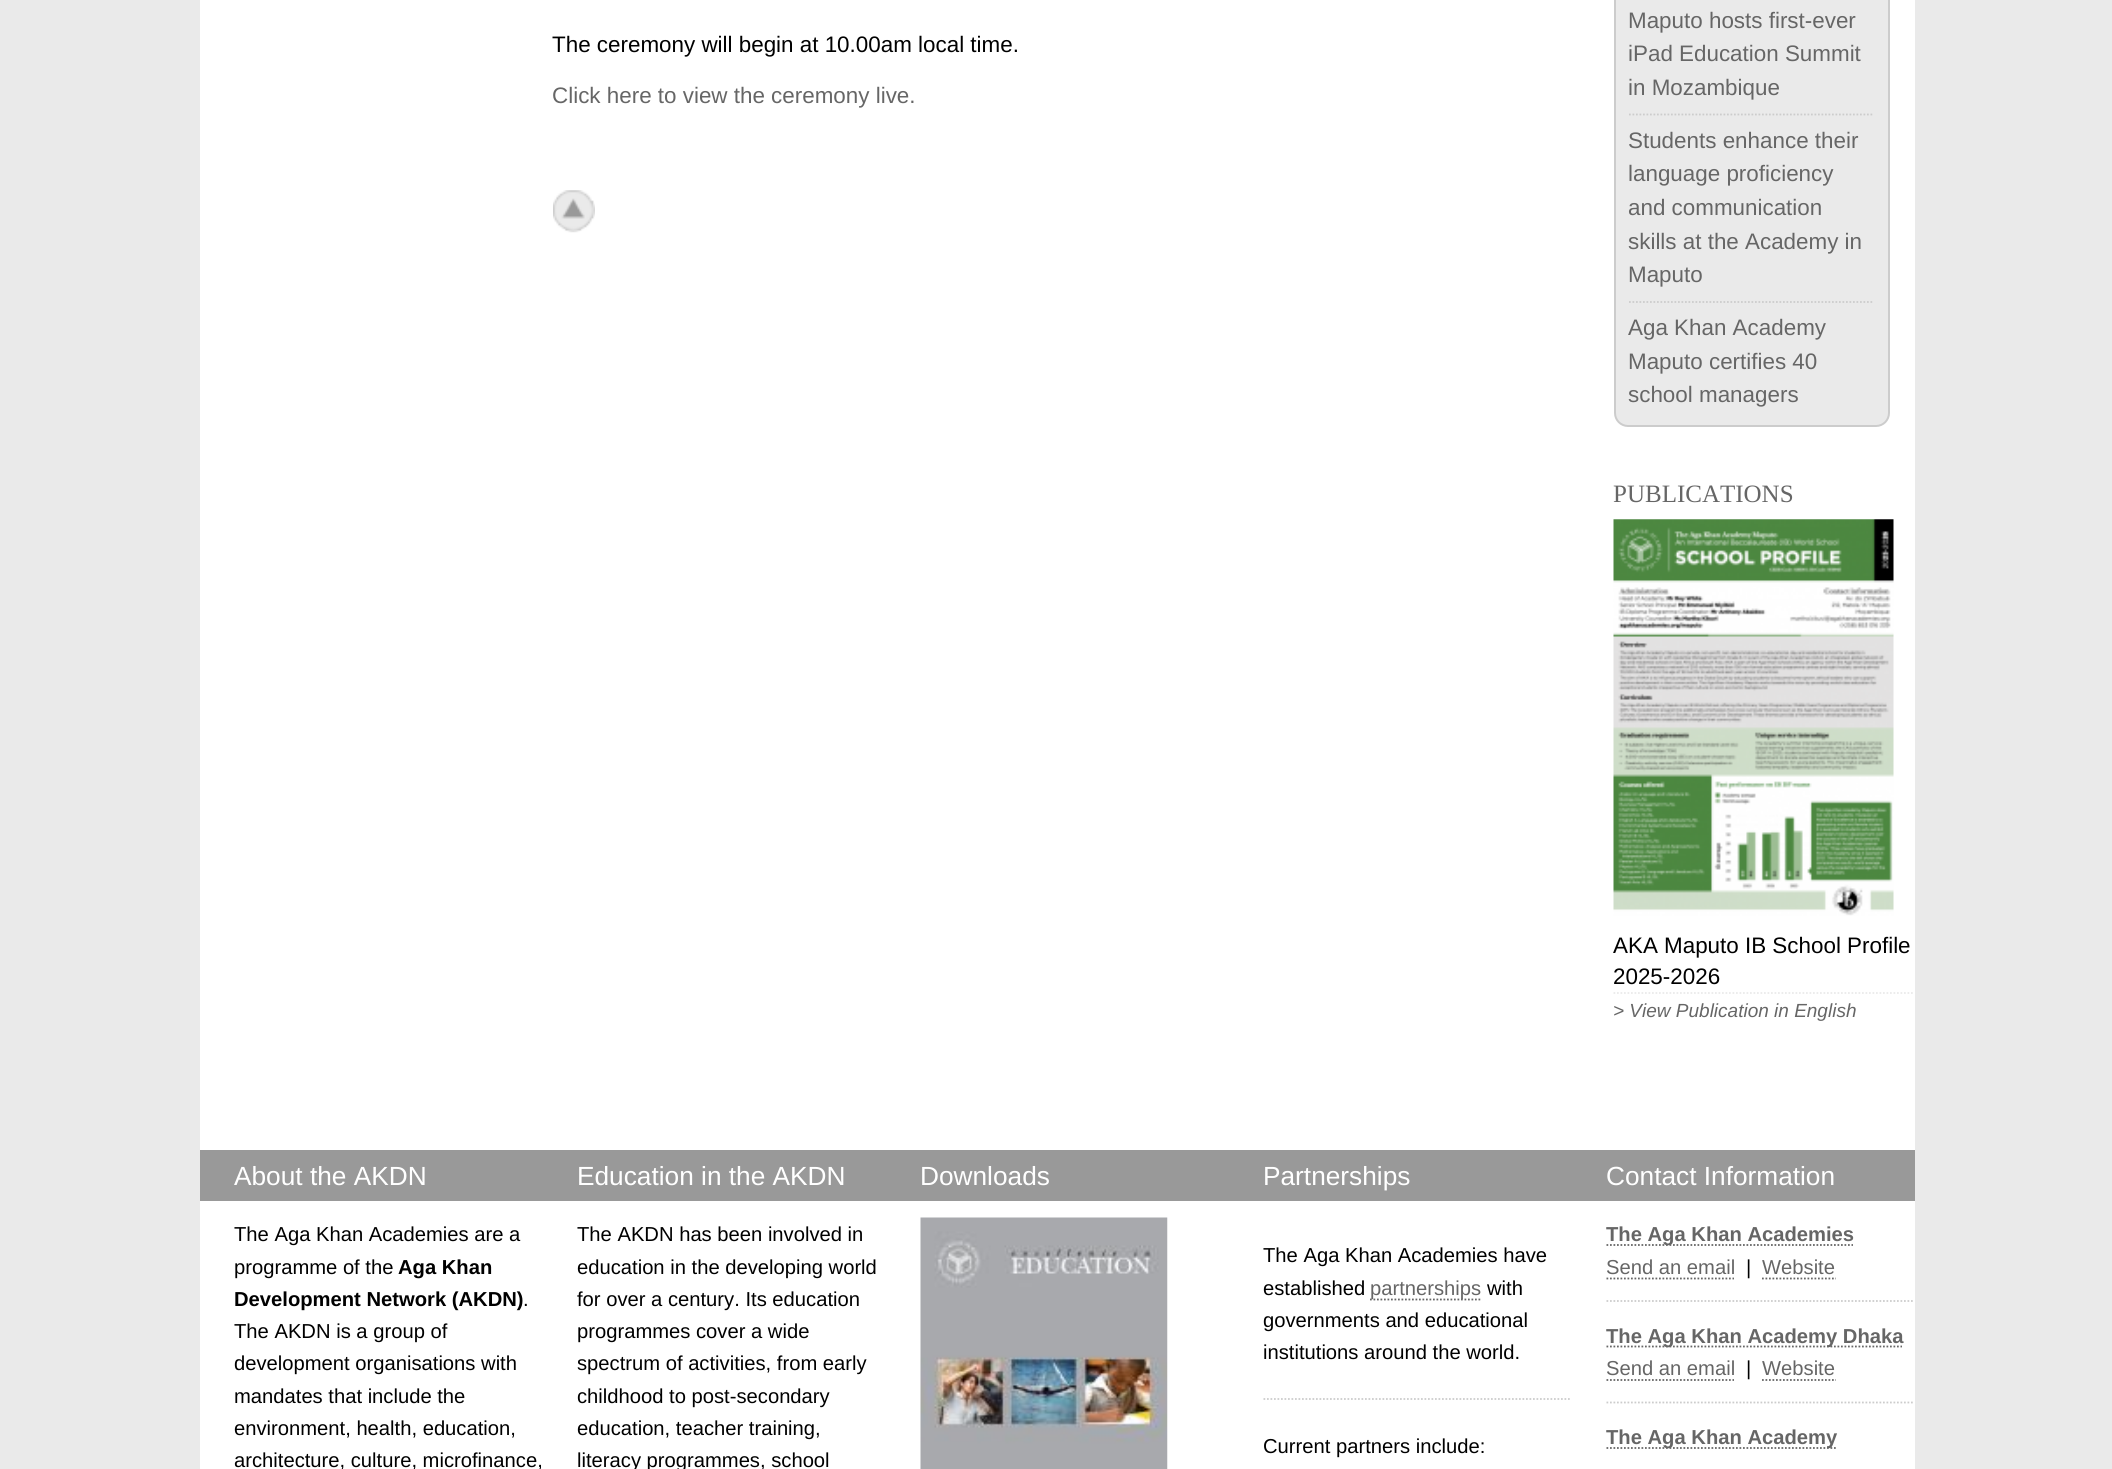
#include <cairo.h>
#include <math.h>
#include <stddef.h>

typedef struct { double x, y; const char *s; } line_t;

static void ink(cairo_t *ctx, unsigned color) {
    cairo_set_source_rgb(ctx, (color >> 16) / 255.0, (color >> 8 & 255) / 255.0, (color & 255) / 255.0);
}

static void round_path(cairo_t *ctx, double x, double y, double w, double h, double r) {
    cairo_new_sub_path(ctx);
    cairo_arc(ctx, x + w - r, y + h - r, r, 0, M_PI / 2);
    cairo_arc(ctx, x + r, y + h - r, r, M_PI / 2, M_PI);
    cairo_arc(ctx, x + r, y + r, r, M_PI, 1.5 * M_PI);
    cairo_arc(ctx, x + w - r, y + r, r, 1.5 * M_PI, 2 * M_PI);
    cairo_close_path(ctx);
}

static void paste(cairo_t *ctx, const char *path, double x, double y, double w, double h) {
    cairo_surface_t *image = cairo_image_surface_create_from_png(path);
    cairo_save(ctx);
    cairo_set_source_surface(ctx, image, x, y);
    cairo_rectangle(ctx, x, y, w, h);
    cairo_fill(ctx);
    cairo_restore(ctx);
    cairo_surface_destroy(image);
}

int main(void) {
    cairo_surface_t *surface = cairo_image_surface_create(CAIRO_FORMAT_RGB24, 2112, 1469);
    cairo_t *ctx = cairo_create(surface);
    cairo_font_options_t *options = cairo_font_options_create();
    cairo_font_options_set_hint_metrics(options, CAIRO_HINT_METRICS_OFF);
    cairo_font_options_set_hint_style(options, CAIRO_HINT_STYLE_NONE);
    cairo_set_font_options(ctx, options);
    cairo_set_miter_limit(ctx, 4);
    ink(ctx, 0xEAEAEA);
    cairo_paint(ctx);
    ink(ctx, 0xFFFFFF);
    cairo_rectangle(ctx, 200, 0, 1715, 1150);
    cairo_fill(ctx);
    cairo_select_font_face(ctx, "Liberation Sans", CAIRO_FONT_SLANT_NORMAL, CAIRO_FONT_WEIGHT_NORMAL);
    cairo_set_font_size(ctx, 22.4);
    ink(ctx, 0x000000);
    cairo_move_to(ctx, 552, 52);
    cairo_show_text(ctx, "The ceremony will begin at 10.00am local time.");
    ink(ctx, 0x666666);
    cairo_move_to(ctx, 552, 103);
    cairo_show_text(ctx, "Click here to view the ceremony live.");
    paste(ctx, "media/1.png", 553, 190, 42, 43);
    ink(ctx, 0xEAEAEA);
    round_path(ctx, 1615, -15, 274, 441, 13);
    cairo_fill_preserve(ctx);
    ink(ctx, 0xCCCCCC);
    cairo_stroke(ctx);
    ink(ctx, 0x666666);
    {
        static const line_t items[] = {
            {1628, 28, "Maputo hosts first-ever"},
            {1628, 61, "iPad Education Summit"},
            {1628, 95, "in Mozambique"},
        };
        for (size_t i = 0; i < sizeof items / sizeof *items; i++) {
            cairo_move_to(ctx, items[i].x, items[i].y);
            cairo_show_text(ctx, items[i].s);
        }
    }
    cairo_new_path(ctx);
    cairo_move_to(ctx, 1629, 114.5);
    cairo_line_to(ctx, 1874, 114.5);
    ink(ctx, 0xCCCCCC);
    cairo_set_line_width(ctx, 1.8);
    cairo_set_dash(ctx, (double[]){1.75, 1.75}, 2, 0);
    cairo_stroke(ctx);
    ink(ctx, 0x666666);
    {
        static const line_t items[] = {
            {1628, 148, "Students enhance their"},
            {1628, 181, "language proficiency"},
            {1628, 215, "and communication"},
            {1628, 249, "skills at the Academy in"},
            {1628, 282, "Maputo"},
        };
        for (size_t i = 0; i < sizeof items / sizeof *items; i++) {
            cairo_move_to(ctx, items[i].x, items[i].y);
            cairo_show_text(ctx, items[i].s);
        }
    }
    cairo_new_path(ctx);
    cairo_move_to(ctx, 1629, 302);
    cairo_line_to(ctx, 1874, 302);
    ink(ctx, 0xCCCCCC);
    cairo_stroke(ctx);
    ink(ctx, 0x666666);
    {
        static const line_t items[] = {
            {1628, 335, "Aga Khan Academy"},
            {1628, 369, "Maputo certifies 40"},
            {1628, 402, "school managers"},
        };
        for (size_t i = 0; i < sizeof items / sizeof *items; i++) {
            cairo_move_to(ctx, items[i].x, items[i].y);
            cairo_show_text(ctx, items[i].s);
        }
    }
    cairo_select_font_face(ctx, "Liberation Serif", CAIRO_FONT_SLANT_NORMAL, CAIRO_FONT_WEIGHT_NORMAL);
    cairo_set_font_size(ctx, 25);
    cairo_move_to(ctx, 1613, 502);
    cairo_show_text(ctx, "PUBLICATIONS");
    paste(ctx, "media/2.png", 1613, 519, 281, 397);
    cairo_select_font_face(ctx, "Liberation Sans", CAIRO_FONT_SLANT_NORMAL, CAIRO_FONT_WEIGHT_NORMAL);
    cairo_set_font_size(ctx, 22.4);
    ink(ctx, 0x000000);
    cairo_move_to(ctx, 1613, 953);
    cairo_show_text(ctx, "AKA Maputo IB School Profile");
    cairo_move_to(ctx, 1613, 984);
    cairo_show_text(ctx, "2025-2026");
    cairo_new_path(ctx);
    cairo_move_to(ctx, 1613.5, 993);
    cairo_line_to(ctx, 1914.5, 993);
    ink(ctx, 0xEAEAEA);
    cairo_stroke(ctx);
    cairo_select_font_face(ctx, "Liberation Sans", CAIRO_FONT_SLANT_ITALIC, CAIRO_FONT_WEIGHT_NORMAL);
    cairo_set_font_size(ctx, 19);
    ink(ctx, 0x666666);
    cairo_move_to(ctx, 1613, 1017);
    cairo_show_text(ctx, "> View Publication in English");
    ink(ctx, 0xFFFFFF);
    cairo_rectangle(ctx, 200, 1201, 1715, 268);
    cairo_fill(ctx);
    ink(ctx, 0x999999);
    cairo_rectangle(ctx, 200, 1150, 1715, 51);
    cairo_fill(ctx);
    cairo_select_font_face(ctx, "Liberation Sans", CAIRO_FONT_SLANT_NORMAL, CAIRO_FONT_WEIGHT_NORMAL);
    cairo_set_font_size(ctx, 26.25);
    ink(ctx, 0xFFFFFF);
    cairo_move_to(ctx, 234, 1185);
    cairo_show_text(ctx, "About the AKDN");
    cairo_set_font_size(ctx, 20.2);
    ink(ctx, 0x000000);
    cairo_move_to(ctx, 234, 1241);
    cairo_show_text(ctx, "The Aga Khan Academies are a");
    cairo_move_to(ctx, 234, 1274);
    cairo_show_text(ctx, "programme of the");
    cairo_select_font_face(ctx, "Liberation Sans", CAIRO_FONT_SLANT_NORMAL, CAIRO_FONT_WEIGHT_BOLD);
    cairo_move_to(ctx, 398, 1274);
    cairo_show_text(ctx, "Aga Khan");
    cairo_move_to(ctx, 234, 1306);
    cairo_show_text(ctx, "Development Network (AKDN)");
    cairo_select_font_face(ctx, "Liberation Sans", CAIRO_FONT_SLANT_NORMAL, CAIRO_FONT_WEIGHT_NORMAL);
    {
        static const line_t items[] = {
            {523, 1306, "."},
            {234, 1338, "The AKDN is a group of"},
            {234, 1370, "development organisations with"},
            {234, 1403, "mandates that include the"},
            {234, 1435, "environment, health, education,"},
            {234, 1467, "architecture, culture, microfinance,"},
        };
        for (size_t i = 0; i < sizeof items / sizeof *items; i++) {
            cairo_move_to(ctx, items[i].x, items[i].y);
            cairo_show_text(ctx, items[i].s);
        }
    }
    cairo_set_font_size(ctx, 26.25);
    ink(ctx, 0xFFFFFF);
    cairo_move_to(ctx, 577, 1185);
    cairo_show_text(ctx, "Education in the AKDN");
    cairo_set_font_size(ctx, 20.2);
    ink(ctx, 0x000000);
    {
        static const line_t items[] = {
            {577, 1241, "The AKDN has been involved in"},
            {577, 1274, "education in the developing world"},
            {577, 1306, "for over a century. Its education"},
            {577, 1338, "programmes cover a wide"},
            {577, 1370, "spectrum of activities, from early"},
            {577, 1403, "childhood to post-secondary"},
            {577, 1435, "education, teacher training,"},
            {577, 1467, "literacy programmes, school"},
        };
        for (size_t i = 0; i < sizeof items / sizeof *items; i++) {
            cairo_move_to(ctx, items[i].x, items[i].y);
            cairo_show_text(ctx, items[i].s);
        }
    }
    cairo_set_font_size(ctx, 26.25);
    ink(ctx, 0xFFFFFF);
    cairo_move_to(ctx, 920, 1185);
    cairo_show_text(ctx, "Downloads");
    paste(ctx, "media/3.png", 920, 1217, 248, 252);
    cairo_move_to(ctx, 1263, 1185);
    cairo_show_text(ctx, "Partnerships");
    cairo_new_path(ctx);
    cairo_move_to(ctx, 1263.5, 1399);
    cairo_line_to(ctx, 1571.5, 1399);
    ink(ctx, 0xCCCCCC);
    cairo_stroke(ctx);
    cairo_set_font_size(ctx, 20.2);
    ink(ctx, 0x000000);
    cairo_move_to(ctx, 1263, 1262);
    cairo_show_text(ctx, "The Aga Khan Academies have");
    cairo_move_to(ctx, 1263, 1295);
    cairo_show_text(ctx, "established");
    cairo_new_path(ctx);
    cairo_move_to(ctx, 1370, 1299.5);
    cairo_line_to(ctx, 1480.5, 1299.5);
    ink(ctx, 0x666666);
    cairo_stroke(ctx);
    cairo_move_to(ctx, 1370, 1295);
    cairo_show_text(ctx, "partnerships");
    ink(ctx, 0x000000);
    {
        static const line_t items[] = {
            {1487, 1295, "with"},
            {1263, 1327, "governments and educational"},
            {1263, 1359, "institutions around the world."},
            {1263, 1453, "Current partners include:"},
        };
        for (size_t i = 0; i < sizeof items / sizeof *items; i++) {
            cairo_move_to(ctx, items[i].x, items[i].y);
            cairo_show_text(ctx, items[i].s);
        }
    }
    cairo_set_font_size(ctx, 26.25);
    ink(ctx, 0xFFFFFF);
    cairo_move_to(ctx, 1606, 1185);
    cairo_show_text(ctx, "Contact Information");
    cairo_new_path(ctx);
    cairo_move_to(ctx, 1606.5, 1301);
    cairo_line_to(ctx, 1914.5, 1301);
    ink(ctx, 0xCCCCCC);
    cairo_stroke(ctx);
    cairo_new_path(ctx);
    cairo_move_to(ctx, 1606.5, 1245);
    cairo_line_to(ctx, 1853, 1245);
    ink(ctx, 0x666666);
    cairo_stroke(ctx);
    cairo_select_font_face(ctx, "Liberation Sans", CAIRO_FONT_SLANT_NORMAL, CAIRO_FONT_WEIGHT_BOLD);
    cairo_set_font_size(ctx, 20.2);
    cairo_move_to(ctx, 1606, 1241);
    cairo_show_text(ctx, "The Aga Khan Academies");
    cairo_select_font_face(ctx, "Liberation Sans", CAIRO_FONT_SLANT_NORMAL, CAIRO_FONT_WEIGHT_NORMAL);
    cairo_move_to(ctx, 1606, 1274);
    cairo_show_text(ctx, "Send an email");
    cairo_new_path(ctx);
    cairo_move_to(ctx, 1606.5, 1278.5);
    cairo_line_to(ctx, 1734, 1278.5);
    cairo_stroke(ctx);
    ink(ctx, 0x000000);
    cairo_move_to(ctx, 1746, 1274);
    cairo_show_text(ctx, "|");
    ink(ctx, 0x666666);
    cairo_move_to(ctx, 1762, 1274);
    cairo_show_text(ctx, "Website");
    cairo_new_path(ctx);
    cairo_move_to(ctx, 1762, 1278.5);
    cairo_line_to(ctx, 1836, 1278.5);
    cairo_stroke(ctx);
    cairo_new_path(ctx);
    cairo_move_to(ctx, 1606.5, 1402.5);
    cairo_line_to(ctx, 1914.5, 1402.5);
    ink(ctx, 0xCCCCCC);
    cairo_stroke(ctx);
    cairo_new_path(ctx);
    cairo_move_to(ctx, 1606.5, 1346.5);
    cairo_line_to(ctx, 1902, 1346.5);
    ink(ctx, 0x666666);
    cairo_stroke(ctx);
    cairo_select_font_face(ctx, "Liberation Sans", CAIRO_FONT_SLANT_NORMAL, CAIRO_FONT_WEIGHT_BOLD);
    cairo_move_to(ctx, 1606, 1343);
    cairo_show_text(ctx, "The Aga Khan Academy Dhaka");
    cairo_select_font_face(ctx, "Liberation Sans", CAIRO_FONT_SLANT_NORMAL, CAIRO_FONT_WEIGHT_NORMAL);
    cairo_move_to(ctx, 1606, 1375);
    cairo_show_text(ctx, "Send an email");
    cairo_new_path(ctx);
    cairo_move_to(ctx, 1606.5, 1380);
    cairo_line_to(ctx, 1734, 1380);
    cairo_stroke(ctx);
    ink(ctx, 0x000000);
    cairo_move_to(ctx, 1746, 1375);
    cairo_show_text(ctx, "|");
    ink(ctx, 0x666666);
    cairo_move_to(ctx, 1762, 1375);
    cairo_show_text(ctx, "Website");
    cairo_new_path(ctx);
    cairo_move_to(ctx, 1762, 1380);
    cairo_line_to(ctx, 1836, 1380);
    cairo_stroke(ctx);
    cairo_new_path(ctx);
    cairo_move_to(ctx, 1606.5, 1448);
    cairo_line_to(ctx, 1836, 1448);
    cairo_stroke(ctx);
    cairo_select_font_face(ctx, "Liberation Sans", CAIRO_FONT_SLANT_NORMAL, CAIRO_FONT_WEIGHT_BOLD);
    cairo_move_to(ctx, 1606, 1444);
    cairo_show_text(ctx, "The Aga Khan Academy");
    cairo_surface_write_to_png(surface, "image.png");
    cairo_font_options_destroy(options);
    cairo_destroy(ctx);
    cairo_surface_destroy(surface);
    return 0;
}
